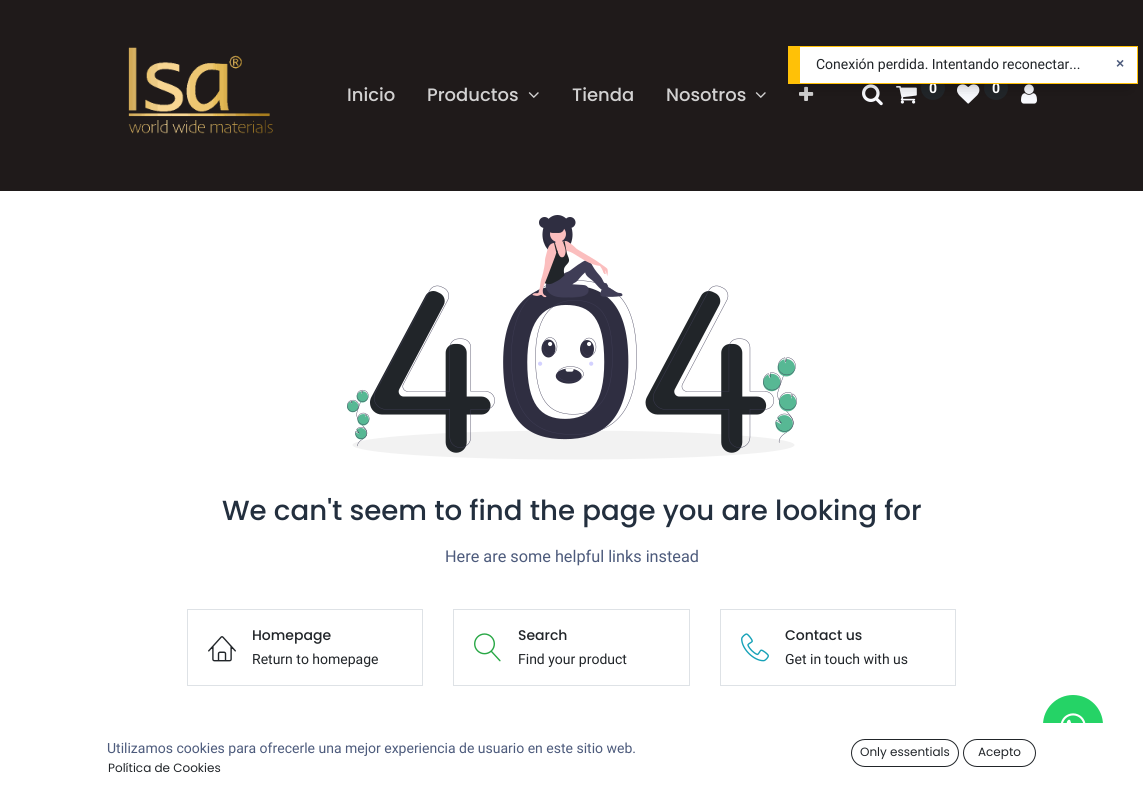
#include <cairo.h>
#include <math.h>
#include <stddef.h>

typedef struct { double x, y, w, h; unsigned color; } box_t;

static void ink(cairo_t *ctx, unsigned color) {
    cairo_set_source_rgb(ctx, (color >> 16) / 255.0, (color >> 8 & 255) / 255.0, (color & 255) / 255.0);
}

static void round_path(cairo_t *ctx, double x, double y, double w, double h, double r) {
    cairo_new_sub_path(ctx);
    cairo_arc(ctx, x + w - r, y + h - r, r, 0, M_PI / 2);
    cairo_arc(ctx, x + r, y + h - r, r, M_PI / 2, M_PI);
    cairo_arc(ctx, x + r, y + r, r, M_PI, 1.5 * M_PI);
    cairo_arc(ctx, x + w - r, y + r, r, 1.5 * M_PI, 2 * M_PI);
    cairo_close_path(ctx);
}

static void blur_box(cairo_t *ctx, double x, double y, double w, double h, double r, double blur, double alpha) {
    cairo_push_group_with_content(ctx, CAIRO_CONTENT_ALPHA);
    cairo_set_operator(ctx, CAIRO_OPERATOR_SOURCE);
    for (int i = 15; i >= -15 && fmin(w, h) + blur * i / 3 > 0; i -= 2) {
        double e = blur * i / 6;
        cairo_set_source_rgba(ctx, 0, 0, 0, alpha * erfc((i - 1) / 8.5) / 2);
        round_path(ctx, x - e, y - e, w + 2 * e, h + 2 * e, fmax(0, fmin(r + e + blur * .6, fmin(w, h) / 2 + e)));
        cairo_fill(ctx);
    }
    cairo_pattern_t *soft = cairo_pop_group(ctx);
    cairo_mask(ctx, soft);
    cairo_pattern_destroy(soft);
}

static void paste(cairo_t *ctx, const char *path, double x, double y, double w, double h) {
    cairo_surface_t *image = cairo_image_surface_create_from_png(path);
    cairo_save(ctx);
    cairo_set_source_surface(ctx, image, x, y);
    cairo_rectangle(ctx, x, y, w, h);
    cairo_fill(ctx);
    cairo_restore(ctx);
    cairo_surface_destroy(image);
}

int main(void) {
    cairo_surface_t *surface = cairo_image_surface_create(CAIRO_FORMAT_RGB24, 1143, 795);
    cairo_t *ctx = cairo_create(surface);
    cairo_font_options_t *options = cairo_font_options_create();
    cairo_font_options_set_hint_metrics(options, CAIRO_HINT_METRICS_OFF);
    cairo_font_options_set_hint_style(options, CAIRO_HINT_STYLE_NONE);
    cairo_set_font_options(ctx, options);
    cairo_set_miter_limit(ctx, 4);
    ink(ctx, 0xFFFFFF);
    cairo_paint(ctx);
    ink(ctx, 0x1F1A1A);
    cairo_rectangle(ctx, 0, 0, 1143, 191);
    cairo_fill(ctx);
    paste(ctx, "media/3.png", 799, 86, 15, 15);
    paste(ctx, "media/4.png", 862, 84, 21, 22);
    paste(ctx, "media/5.png", 896, 86, 21, 18);
    ink(ctx, 0x212529);
    cairo_arc(ctx, 933, 88, 12, 0, 2 * M_PI);
    cairo_fill(ctx);
    paste(ctx, "media/6.png", 957, 84, 23, 20);
    cairo_arc(ctx, 996, 88, 12, 0, 2 * M_PI);
    cairo_fill(ctx);
    paste(ctx, "media/7.png", 1021, 84, 16, 20);
    ink(ctx, 0x000000);
    blur_box(ctx, 798, 68, 330, 18, 0, 7, 0.25);
    {
        static const box_t items[] = {
            {800, 47, 337, 36, 0xFFFFFF},
            {800, 46, 338, 1, 0xFFC107},
            {1137, 46, 1, 38, 0xFFC107},
        };
        for (size_t i = 0; i < sizeof items / sizeof *items; i++) {
            ink(ctx, items[i].color);
            cairo_rectangle(ctx, items[i].x, items[i].y, items[i].w, items[i].h);
            cairo_fill(ctx);
        }
    }
    cairo_select_font_face(ctx, "Roboto", CAIRO_FONT_SLANT_NORMAL, CAIRO_FONT_WEIGHT_BOLD);
    cairo_set_font_size(ctx, 14);
    ink(ctx, 0xFFFFFF);
    cairo_move_to(ctx, 929, 93);
    cairo_show_text(ctx, "0");
    cairo_move_to(ctx, 992, 93);
    cairo_show_text(ctx, "0");
    ink(ctx, 0xFFC107);
    cairo_rectangle(ctx, 800, 83, 338, 1);
    cairo_fill(ctx);
    cairo_rectangle(ctx, 788, 46, 12, 38);
    cairo_fill(ctx);
    cairo_select_font_face(ctx, "Roboto", CAIRO_FONT_SLANT_NORMAL, CAIRO_FONT_WEIGHT_NORMAL);
    ink(ctx, 0x212529);
    cairo_move_to(ctx, 816, 69);
    cairo_show_text(ctx, "Conexión perdida. Intentando reconectar...");
    cairo_select_font_face(ctx, "Liberation Sans", CAIRO_FONT_SLANT_NORMAL, CAIRO_FONT_WEIGHT_BOLD);
    ink(ctx, 0x4D5B7C);
    cairo_move_to(ctx, 1116, 68);
    cairo_show_text(ctx, "×");
    paste(ctx, "media/1.png", 128, 47, 145, 87);
    cairo_select_font_face(ctx, "Poppins Medium", CAIRO_FONT_SLANT_NORMAL, CAIRO_FONT_WEIGHT_NORMAL);
    cairo_set_font_size(ctx, 18);
    ink(ctx, 0xD2D1D1);
    cairo_move_to(ctx, 347, 101);
    cairo_show_text(ctx, "Inicio");
    cairo_move_to(ctx, 427, 101);
    cairo_show_text(ctx, "Productos");
    paste(ctx, "media/2.png", 528, 92, 11, 6);
    cairo_move_to(ctx, 572, 101);
    cairo_show_text(ctx, "Tienda");
    cairo_move_to(ctx, 666, 101);
    cairo_show_text(ctx, "Nosotros");
    paste(ctx, "media/2.png", 755, 92, 11, 6);
    paste(ctx, "media/8.png", 347, 215, 450, 245);
    cairo_set_font_size(ctx, 27.65);
    ink(ctx, 0x232F3E);
    cairo_move_to(ctx, 222, 520);
    cairo_show_text(ctx, "We can't seem to find the page you are looking for");
    cairo_select_font_face(ctx, "Roboto", CAIRO_FONT_SLANT_NORMAL, CAIRO_FONT_WEIGHT_NORMAL);
    cairo_set_font_size(ctx, 16.25);
    ink(ctx, 0x4D5B7C);
    cairo_move_to(ctx, 445, 562);
    cairo_show_text(ctx, "Here are some helpful links instead");
    cairo_rectangle(ctx, 187.5, 609.5, 235, 76);
    ink(ctx, 0xDEE2E6);
    cairo_set_line_width(ctx, 1);
    cairo_stroke(ctx);
    paste(ctx, "media/9.png", 208, 636, 28, 26);
    cairo_select_font_face(ctx, "Poppins Medium", CAIRO_FONT_SLANT_NORMAL, CAIRO_FONT_WEIGHT_NORMAL);
    cairo_set_font_size(ctx, 14);
    ink(ctx, 0x212529);
    cairo_move_to(ctx, 252, 640);
    cairo_show_text(ctx, "Homepage");
    cairo_select_font_face(ctx, "Roboto", CAIRO_FONT_SLANT_NORMAL, CAIRO_FONT_WEIGHT_NORMAL);
    cairo_move_to(ctx, 252, 664);
    cairo_show_text(ctx, "Return to homepage");
    cairo_rectangle(ctx, 453.5, 609.5, 236, 76);
    ink(ctx, 0xDEE2E6);
    cairo_stroke(ctx);
    paste(ctx, "media/10.png", 474, 633, 27, 29);
    cairo_select_font_face(ctx, "Poppins Medium", CAIRO_FONT_SLANT_NORMAL, CAIRO_FONT_WEIGHT_NORMAL);
    ink(ctx, 0x212529);
    cairo_move_to(ctx, 518, 640);
    cairo_show_text(ctx, "Search");
    cairo_select_font_face(ctx, "Roboto", CAIRO_FONT_SLANT_NORMAL, CAIRO_FONT_WEIGHT_NORMAL);
    cairo_move_to(ctx, 518, 664);
    cairo_show_text(ctx, "Find your product");
    cairo_rectangle(ctx, 720.5, 609.5, 235, 76);
    ink(ctx, 0xDEE2E6);
    cairo_stroke(ctx);
    paste(ctx, "media/11.png", 741, 633, 28, 29);
    cairo_select_font_face(ctx, "Poppins Medium", CAIRO_FONT_SLANT_NORMAL, CAIRO_FONT_WEIGHT_NORMAL);
    ink(ctx, 0x212529);
    cairo_move_to(ctx, 785, 640);
    cairo_show_text(ctx, "Contact us");
    cairo_select_font_face(ctx, "Roboto", CAIRO_FONT_SLANT_NORMAL, CAIRO_FONT_WEIGHT_NORMAL);
    cairo_move_to(ctx, 785, 664);
    cairo_show_text(ctx, "Get in touch with us");
    ink(ctx, 0x25D366);
    cairo_new_path(ctx);
    cairo_arc(ctx, 1073, 725, 30, 0, 2 * M_PI);
    cairo_fill(ctx);
    ink(ctx, 0xFFFFFF);
    cairo_rectangle(ctx, 1043, 723, 60, 32);
    cairo_fill(ctx);
    ink(ctx, 0x4D5B7C);
    cairo_move_to(ctx, 107, 753);
    cairo_show_text(ctx, "Utilizamos cookies para ofrecerle una mejor experiencia de usuario en este sitio web.");
    cairo_select_font_face(ctx, "Poppins", CAIRO_FONT_SLANT_NORMAL, CAIRO_FONT_WEIGHT_NORMAL);
    cairo_set_font_size(ctx, 12);
    ink(ctx, 0x212529);
    cairo_move_to(ctx, 108, 772);
    cairo_show_text(ctx, "Política de Cookies");
    round_path(ctx, 851.5, 739.5, 107, 27, 13.5);
    cairo_stroke(ctx);
    cairo_move_to(ctx, 860, 756);
    cairo_show_text(ctx, "Only essentials");
    round_path(ctx, 963.5, 739.5, 72, 27, 13.5);
    cairo_stroke(ctx);
    cairo_move_to(ctx, 978, 756);
    cairo_show_text(ctx, "Acepto");
    paste(ctx, "media/12.png", 1060, 713, 26, 10);
    cairo_surface_write_to_png(surface, "image.png");
    cairo_font_options_destroy(options);
    cairo_destroy(ctx);
    cairo_surface_destroy(surface);
    return 0;
}
